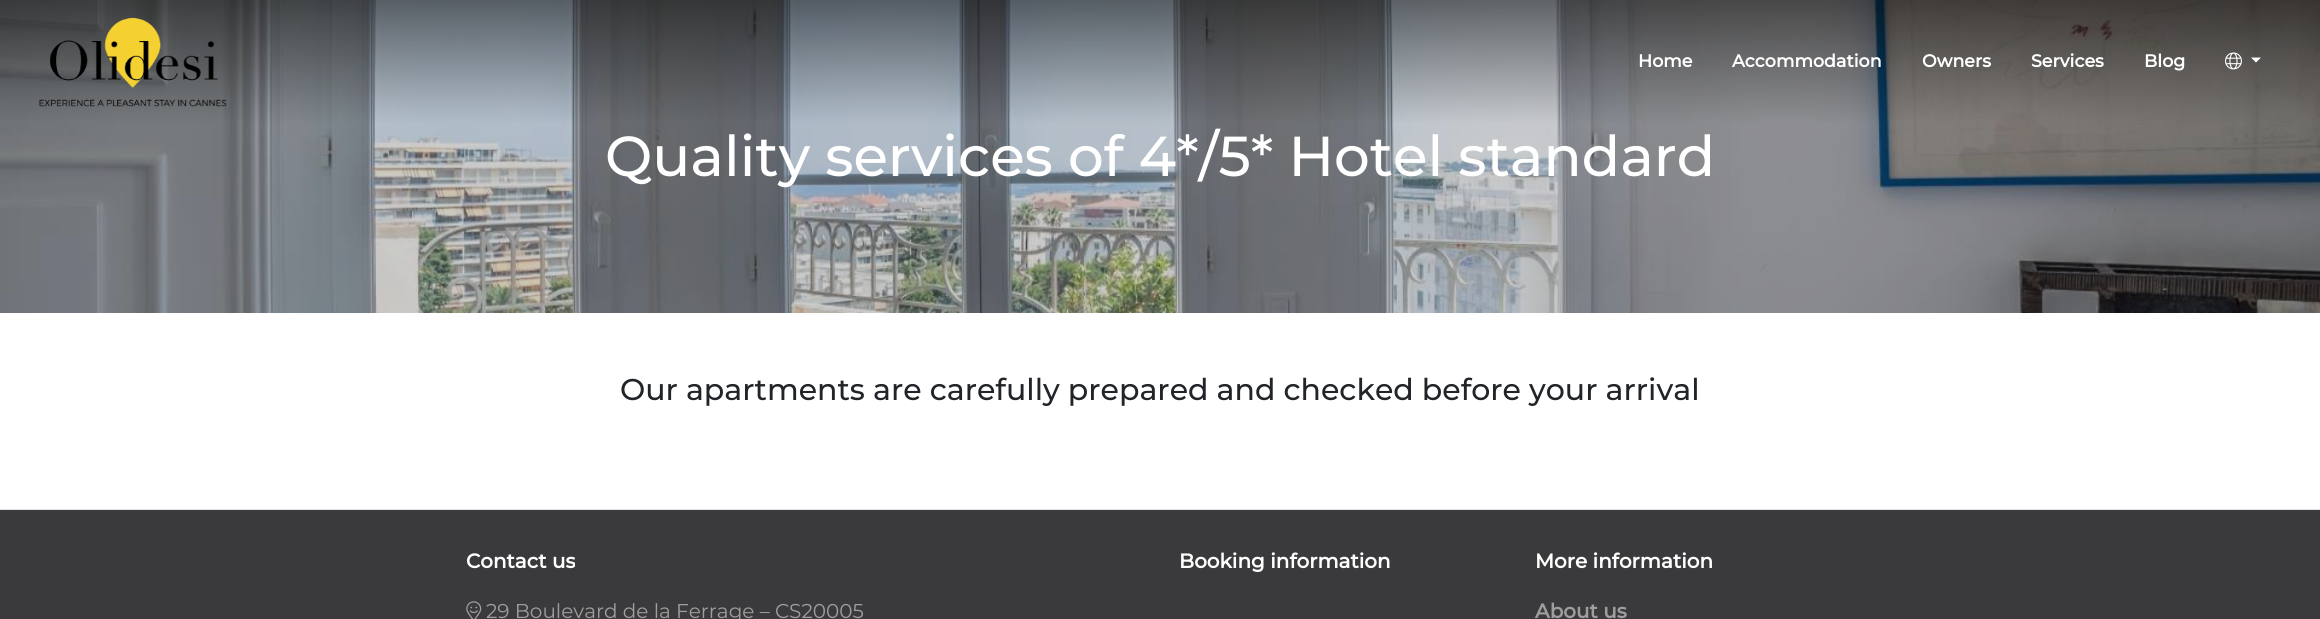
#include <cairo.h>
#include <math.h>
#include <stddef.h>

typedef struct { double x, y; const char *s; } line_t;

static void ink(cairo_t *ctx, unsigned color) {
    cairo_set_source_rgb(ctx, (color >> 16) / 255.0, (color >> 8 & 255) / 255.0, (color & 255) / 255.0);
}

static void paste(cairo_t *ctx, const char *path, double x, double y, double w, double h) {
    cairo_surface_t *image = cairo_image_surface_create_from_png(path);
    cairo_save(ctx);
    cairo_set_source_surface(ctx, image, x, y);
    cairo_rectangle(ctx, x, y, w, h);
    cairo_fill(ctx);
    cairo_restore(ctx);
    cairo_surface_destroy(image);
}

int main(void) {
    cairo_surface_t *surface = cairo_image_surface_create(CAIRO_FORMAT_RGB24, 2320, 619);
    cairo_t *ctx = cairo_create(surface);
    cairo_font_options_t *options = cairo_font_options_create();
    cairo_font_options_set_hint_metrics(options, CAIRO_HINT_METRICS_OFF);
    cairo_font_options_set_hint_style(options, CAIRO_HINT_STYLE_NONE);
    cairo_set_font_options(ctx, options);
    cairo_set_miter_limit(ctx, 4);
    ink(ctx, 0xFFFFFF);
    cairo_paint(ctx);
    paste(ctx, "media/1.png", 0, 0, 2320, 313);
    paste(ctx, "media/2.png", 39, 17, 188, 90);
    cairo_select_font_face(ctx, "Montserrat", CAIRO_FONT_SLANT_NORMAL, CAIRO_FONT_WEIGHT_BOLD);
    cairo_set_font_size(ctx, 17.5);
    ink(ctx, 0xFFFFFF);
    {
        static const line_t items[] = {
            {1638, 67, "Home"},
            {1732, 67, "Accommodation"},
            {1922, 67, "Owners"},
            {2031, 67, "Services"},
            {2144, 67, "Blog"},
        };
        for (size_t i = 0; i < sizeof items / sizeof *items; i++) {
            cairo_move_to(ctx, items[i].x, items[i].y);
            cairo_show_text(ctx, items[i].s);
        }
    }
    paste(ctx, "media/3.png", 2225, 52, 17, 18);
    cairo_new_path(ctx);
    cairo_move_to(ctx, 2251, 57.5);
    cairo_line_to(ctx, 2261, 57.5);
    cairo_line_to(ctx, 2256, 62.5);
    cairo_close_path(ctx);
    cairo_fill(ctx);
    cairo_select_font_face(ctx, "Montserrat Medium", CAIRO_FONT_SLANT_NORMAL, CAIRO_FONT_WEIGHT_NORMAL);
    cairo_set_font_size(ctx, 56.25);
    cairo_move_to(ctx, 605, 176);
    cairo_show_text(ctx, "Quality services of 4*/5* Hotel standard");
    cairo_set_font_size(ctx, 30);
    ink(ctx, 0x212529);
    cairo_move_to(ctx, 620, 400);
    cairo_show_text(ctx, "Our apartments are carefully prepared and checked before your arrival");
    ink(ctx, 0x3A3A3C);
    cairo_rectangle(ctx, 0, 510, 2320, 109);
    cairo_fill(ctx);
    ink(ctx, 0xDEE2E6);
    cairo_rectangle(ctx, 0, 509, 2320, 1);
    cairo_fill(ctx);
    cairo_select_font_face(ctx, "Montserrat", CAIRO_FONT_SLANT_NORMAL, CAIRO_FONT_WEIGHT_BOLD);
    cairo_set_font_size(ctx, 20);
    ink(ctx, 0xFFFFFF);
    cairo_move_to(ctx, 466, 568);
    cairo_show_text(ctx, "Contact us");
    paste(ctx, "media/4.png", 466, 601, 16, 18);
    cairo_select_font_face(ctx, "Montserrat", CAIRO_FONT_SLANT_NORMAL, CAIRO_FONT_WEIGHT_NORMAL);
    ink(ctx, 0x9E9E9E);
    cairo_move_to(ctx, 486, 618);
    cairo_show_text(ctx, "29 Boulevard de la Ferrage – CS20005");
    cairo_select_font_face(ctx, "Montserrat", CAIRO_FONT_SLANT_NORMAL, CAIRO_FONT_WEIGHT_BOLD);
    ink(ctx, 0xFFFFFF);
    cairo_move_to(ctx, 1179, 568);
    cairo_show_text(ctx, "Booking information");
    cairo_move_to(ctx, 1535, 568);
    cairo_show_text(ctx, "More information");
    ink(ctx, 0x9E9E9E);
    cairo_move_to(ctx, 1535, 618);
    cairo_show_text(ctx, "About us");
    cairo_surface_write_to_png(surface, "image.png");
    cairo_font_options_destroy(options);
    cairo_destroy(ctx);
    cairo_surface_destroy(surface);
    return 0;
}
